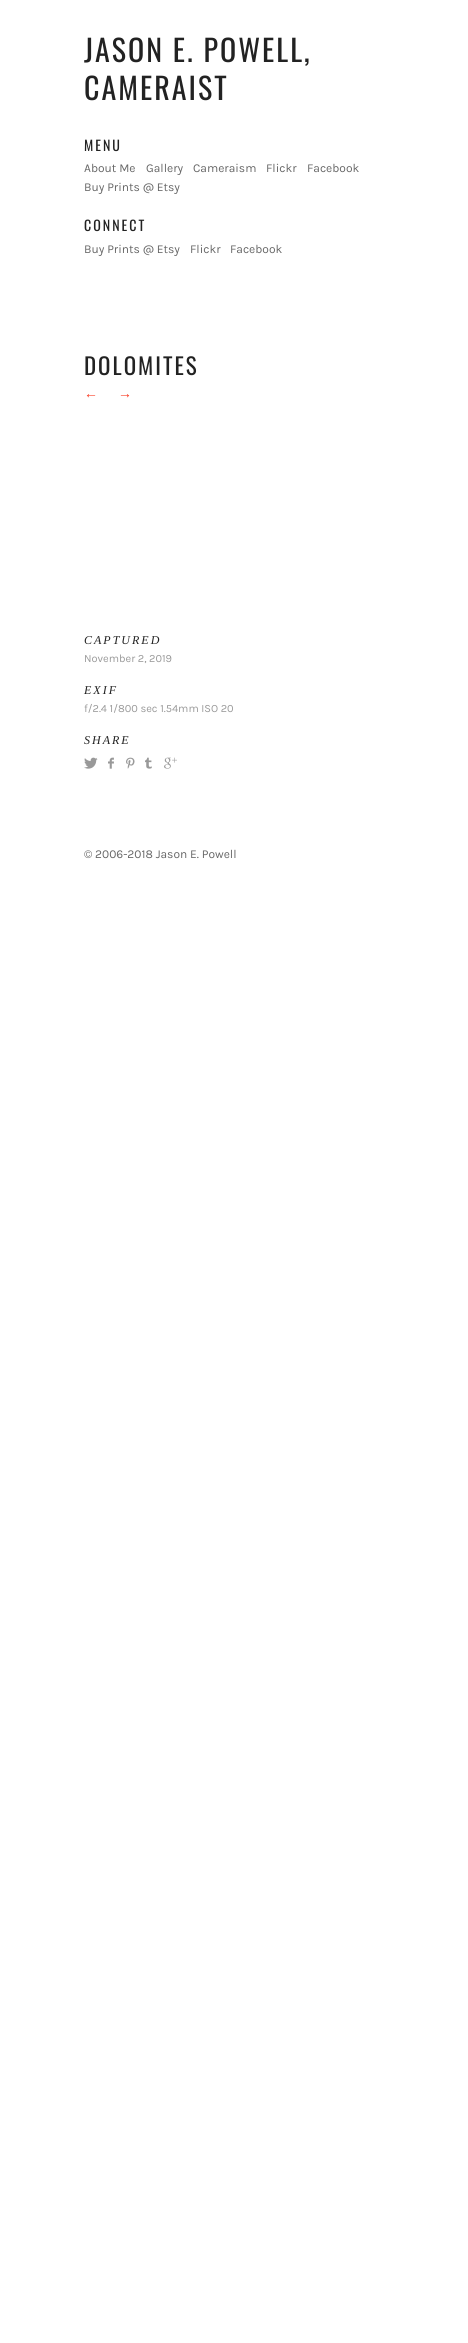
#include <cairo.h>
#include <math.h>
#include <stddef.h>

typedef struct { double x, y; const char *s; } line_t;

static void ink(cairo_t *ctx, unsigned color) {
    cairo_set_source_rgb(ctx, (color >> 16) / 255.0, (color >> 8 & 255) / 255.0, (color & 255) / 255.0);
}

static void write_spaced(cairo_t *ctx, double x, double y, const char *s, double letter, double word) {
    cairo_move_to(ctx, x, y);
    while (*s) {
        char ch[5] = {0};
        int n = 0;
        do ch[n++] = *s++; while ((*s & 0xC0) == 0x80);
        cairo_show_text(ctx, ch);
        cairo_rel_move_to(ctx, letter + word * (*ch == ' '), 0);
    }
}

static void paste(cairo_t *ctx, const char *path, double x, double y, double w, double h) {
    cairo_surface_t *image = cairo_image_surface_create_from_png(path);
    cairo_save(ctx);
    cairo_set_source_surface(ctx, image, x, y);
    cairo_rectangle(ctx, x, y, w, h);
    cairo_fill(ctx);
    cairo_restore(ctx);
    cairo_surface_destroy(image);
}

int main(void) {
    cairo_surface_t *surface = cairo_image_surface_create(CAIRO_FORMAT_RGB24, 468, 2343);
    cairo_t *ctx = cairo_create(surface);
    cairo_font_options_t *options = cairo_font_options_create();
    cairo_font_options_set_hint_metrics(options, CAIRO_HINT_METRICS_OFF);
    cairo_font_options_set_hint_style(options, CAIRO_HINT_STYLE_NONE);
    cairo_set_font_options(ctx, options);
    cairo_set_miter_limit(ctx, 4);
    ink(ctx, 0xFFFFFF);
    cairo_paint(ctx);
    cairo_select_font_face(ctx, "Oswald", CAIRO_FONT_SLANT_NORMAL, CAIRO_FONT_WEIGHT_NORMAL);
    cairo_set_font_size(ctx, 30);
    ink(ctx, 0x222222);
    write_spaced(ctx, 84, 62, "JASON E. POWELL,", 2, 0);
    write_spaced(ctx, 84, 100, "CAMERAIST", 2, 0);
    cairo_set_font_size(ctx, 14);
    write_spaced(ctx, 84, 151, "MENU", 2, 0);
    cairo_select_font_face(ctx, "Karla", CAIRO_FONT_SLANT_NORMAL, CAIRO_FONT_WEIGHT_NORMAL);
    cairo_set_font_size(ctx, 12);
    ink(ctx, 0x666666);
    {
        static const line_t items[] = {
            {84, 172, "About Me"},
            {146, 172, "Gallery"},
            {193, 172, "Cameraism"},
            {266, 172, "Flickr"},
            {307, 172, "Facebook"},
            {84, 191, "Buy Prints @ Etsy"},
        };
        for (size_t i = 0; i < sizeof items / sizeof *items; i++) {
            cairo_move_to(ctx, items[i].x, items[i].y);
            cairo_show_text(ctx, items[i].s);
        }
    }
    cairo_select_font_face(ctx, "Oswald", CAIRO_FONT_SLANT_NORMAL, CAIRO_FONT_WEIGHT_NORMAL);
    cairo_set_font_size(ctx, 14);
    ink(ctx, 0x222222);
    write_spaced(ctx, 84, 231, "CONNECT", 2, 0);
    cairo_select_font_face(ctx, "Karla", CAIRO_FONT_SLANT_NORMAL, CAIRO_FONT_WEIGHT_NORMAL);
    cairo_set_font_size(ctx, 12);
    ink(ctx, 0x666666);
    {
        static const line_t items[] = {
            {84, 253, "Buy Prints @ Etsy"},
            {190, 253, "Flickr"},
            {230, 253, "Facebook"},
        };
        for (size_t i = 0; i < sizeof items / sizeof *items; i++) {
            cairo_move_to(ctx, items[i].x, items[i].y);
            cairo_show_text(ctx, items[i].s);
        }
    }
    cairo_select_font_face(ctx, "Oswald", CAIRO_FONT_SLANT_NORMAL, CAIRO_FONT_WEIGHT_NORMAL);
    cairo_set_font_size(ctx, 23);
    ink(ctx, 0x222222);
    write_spaced(ctx, 84, 375, "DOLOMITES", 2, 0);
    cairo_select_font_face(ctx, "Liberation Sans", CAIRO_FONT_SLANT_NORMAL, CAIRO_FONT_WEIGHT_NORMAL);
    cairo_set_font_size(ctx, 14);
    ink(ctx, 0xFA3C24);
    cairo_move_to(ctx, 84, 398);
    cairo_show_text(ctx, "←");
    cairo_move_to(ctx, 118, 398);
    cairo_show_text(ctx, "→");
    cairo_select_font_face(ctx, "Liberation Serif", CAIRO_FONT_SLANT_ITALIC, CAIRO_FONT_WEIGHT_NORMAL);
    cairo_set_font_size(ctx, 12);
    ink(ctx, 0x222222);
    write_spaced(ctx, 84, 644, "CAPTURED", 2, 0);
    cairo_select_font_face(ctx, "Karla", CAIRO_FONT_SLANT_NORMAL, CAIRO_FONT_WEIGHT_NORMAL);
    cairo_set_font_size(ctx, 11);
    ink(ctx, 0x999999);
    cairo_move_to(ctx, 84, 662);
    cairo_show_text(ctx, "November 2, 2019");
    cairo_select_font_face(ctx, "Liberation Serif", CAIRO_FONT_SLANT_ITALIC, CAIRO_FONT_WEIGHT_NORMAL);
    cairo_set_font_size(ctx, 12);
    ink(ctx, 0x222222);
    write_spaced(ctx, 84, 694, "EXIF", 2, 0);
    cairo_select_font_face(ctx, "Karla", CAIRO_FONT_SLANT_NORMAL, CAIRO_FONT_WEIGHT_NORMAL);
    cairo_set_font_size(ctx, 11);
    ink(ctx, 0x999999);
    cairo_move_to(ctx, 84, 712);
    cairo_show_text(ctx, "f/2.4 1/800 sec 1.54mm ISO 20");
    cairo_select_font_face(ctx, "Liberation Serif", CAIRO_FONT_SLANT_ITALIC, CAIRO_FONT_WEIGHT_NORMAL);
    cairo_set_font_size(ctx, 12);
    ink(ctx, 0x222222);
    write_spaced(ctx, 84, 744, "SHARE", 2, 0);
    paste(ctx, "media/1.png", 84, 757, 14, 12);
    paste(ctx, "media/2.png", 108, 757, 6, 12);
    paste(ctx, "media/3.png", 126, 757, 9, 12);
    paste(ctx, "media/4.png", 145, 757, 7, 12);
    paste(ctx, "media/5.png", 164, 757, 13, 12);
    cairo_select_font_face(ctx, "Karla", CAIRO_FONT_SLANT_NORMAL, CAIRO_FONT_WEIGHT_NORMAL);
    ink(ctx, 0x666666);
    cairo_move_to(ctx, 84, 858);
    cairo_show_text(ctx, "© 2006-2018 Jason E. Powell");
    cairo_surface_write_to_png(surface, "image.png");
    cairo_font_options_destroy(options);
    cairo_destroy(ctx);
    cairo_surface_destroy(surface);
    return 0;
}
